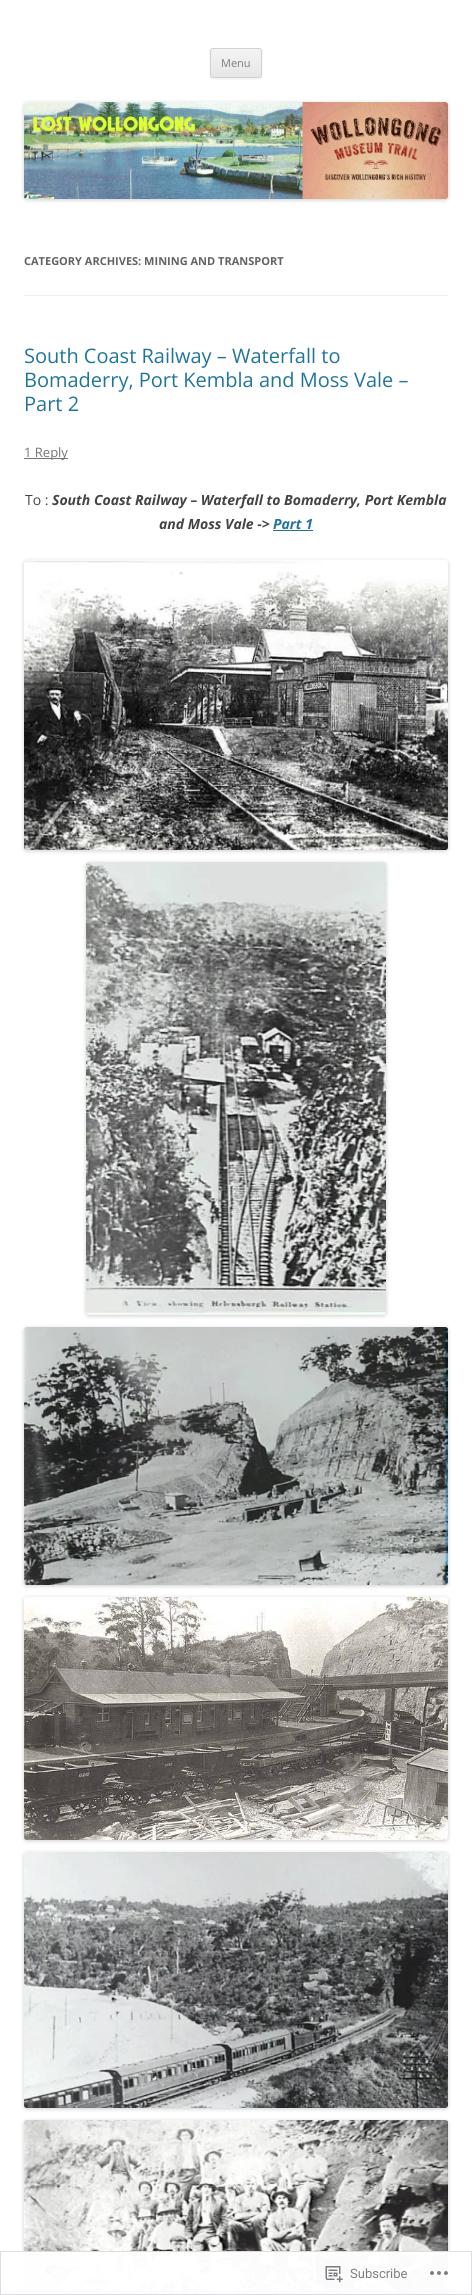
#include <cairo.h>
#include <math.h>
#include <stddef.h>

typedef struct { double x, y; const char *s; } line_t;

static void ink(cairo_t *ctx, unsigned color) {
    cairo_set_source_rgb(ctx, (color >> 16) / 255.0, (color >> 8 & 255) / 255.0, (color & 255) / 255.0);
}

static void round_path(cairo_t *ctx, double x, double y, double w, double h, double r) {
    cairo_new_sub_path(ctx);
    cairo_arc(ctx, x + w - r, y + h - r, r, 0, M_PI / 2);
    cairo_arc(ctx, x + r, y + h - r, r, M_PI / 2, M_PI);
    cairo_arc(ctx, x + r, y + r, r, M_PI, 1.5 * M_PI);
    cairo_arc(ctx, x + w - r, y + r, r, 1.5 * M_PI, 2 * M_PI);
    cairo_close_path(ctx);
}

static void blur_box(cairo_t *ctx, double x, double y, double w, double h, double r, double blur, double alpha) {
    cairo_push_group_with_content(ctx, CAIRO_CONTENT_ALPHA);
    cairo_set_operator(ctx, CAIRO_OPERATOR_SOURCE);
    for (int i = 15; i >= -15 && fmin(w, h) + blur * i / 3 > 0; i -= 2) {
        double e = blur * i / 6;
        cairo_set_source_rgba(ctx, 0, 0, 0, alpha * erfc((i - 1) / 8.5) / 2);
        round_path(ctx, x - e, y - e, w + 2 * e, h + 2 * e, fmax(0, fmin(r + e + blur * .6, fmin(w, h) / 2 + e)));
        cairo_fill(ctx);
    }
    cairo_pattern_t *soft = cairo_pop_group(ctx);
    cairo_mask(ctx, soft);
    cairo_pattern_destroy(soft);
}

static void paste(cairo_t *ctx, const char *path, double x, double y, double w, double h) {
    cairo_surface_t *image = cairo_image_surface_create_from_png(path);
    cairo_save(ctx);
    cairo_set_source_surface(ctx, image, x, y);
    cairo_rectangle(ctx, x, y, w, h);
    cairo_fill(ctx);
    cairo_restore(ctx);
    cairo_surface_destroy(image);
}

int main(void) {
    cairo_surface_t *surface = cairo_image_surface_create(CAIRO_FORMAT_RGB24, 472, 2295);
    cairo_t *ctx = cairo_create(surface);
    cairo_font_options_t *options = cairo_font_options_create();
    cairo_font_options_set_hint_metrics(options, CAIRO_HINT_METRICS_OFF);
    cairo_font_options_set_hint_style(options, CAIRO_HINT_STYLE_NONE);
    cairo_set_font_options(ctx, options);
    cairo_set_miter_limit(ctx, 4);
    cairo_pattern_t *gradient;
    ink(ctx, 0xFFFFFF);
    cairo_paint(ctx);
    ink(ctx, 0x404040);
    blur_box(ctx, 210, 49, 52, 30, 3, 1, 0.1);
    cairo_save(ctx);
    round_path(ctx, 210, 48, 52, 30, 3);
    cairo_clip(ctx);
    gradient = cairo_pattern_create_linear(236, 49, 236, 77);
    cairo_pattern_add_color_stop_rgba(gradient, 0, 0.957, 0.957, 0.957, 1);
    cairo_pattern_add_color_stop_rgba(gradient, 1, 0.902, 0.902, 0.902, 1);
    cairo_set_source(ctx, gradient);
    cairo_pattern_destroy(gradient);
    cairo_rectangle(ctx, 210, 49, 52, 28);
    cairo_fill(ctx);
    cairo_restore(ctx);
    round_path(ctx, 210.5, 48.5, 51, 29, 2.5);
    ink(ctx, 0xD2D2D2);
    cairo_set_line_width(ctx, 1);
    cairo_stroke(ctx);
    cairo_select_font_face(ctx, "Open Sans", CAIRO_FONT_SLANT_NORMAL, CAIRO_FONT_WEIGHT_NORMAL);
    cairo_set_font_size(ctx, 11);
    ink(ctx, 0x7C7C7C);
    cairo_move_to(ctx, 221, 67);
    cairo_show_text(ctx, "Menu");
    ink(ctx, 0x000000);
    blur_box(ctx, 24, 103, 424, 97, 3, 2, 0.2);
    paste(ctx, "media/1.png", 24, 102, 424, 97);
    ink(ctx, 0xEDEDED);
    cairo_rectangle(ctx, 24, 295, 424, 1);
    cairo_fill(ctx);
    cairo_select_font_face(ctx, "Open Sans", CAIRO_FONT_SLANT_NORMAL, CAIRO_FONT_WEIGHT_BOLD);
    ink(ctx, 0x636363);
    cairo_move_to(ctx, 24, 265);
    cairo_show_text(ctx, "CATEGORY ARCHIVES: MINING AND TRANSPORT");
    cairo_select_font_face(ctx, "Open Sans", CAIRO_FONT_SLANT_NORMAL, CAIRO_FONT_WEIGHT_NORMAL);
    cairo_set_font_size(ctx, 20);
    ink(ctx, 0x21759B);
    {
        static const line_t items[] = {
            {24, 363, "South Coast Railway – Waterfall to"},
            {24, 387, "Bomaderry, Port Kembla and Moss Vale –"},
            {24, 411, "Part 2"},
        };
        for (size_t i = 0; i < sizeof items / sizeof *items; i++) {
            cairo_move_to(ctx, items[i].x, items[i].y);
            cairo_show_text(ctx, items[i].s);
        }
    }
    ink(ctx, 0x757575);
    cairo_rectangle(ctx, 24, 458, 44, 1);
    cairo_fill(ctx);
    cairo_set_font_size(ctx, 13);
    cairo_move_to(ctx, 24, 457);
    cairo_show_text(ctx, "1 Reply");
    cairo_set_font_size(ctx, 14);
    ink(ctx, 0x444444);
    cairo_move_to(ctx, 25, 505);
    cairo_show_text(ctx, "To :");
    cairo_select_font_face(ctx, "Open Sans", CAIRO_FONT_SLANT_ITALIC, CAIRO_FONT_WEIGHT_BOLD);
    cairo_move_to(ctx, 52, 505);
    cairo_show_text(ctx, "South Coast Railway – Waterfall to Bomaderry, Port Kembla");
    cairo_move_to(ctx, 159, 529);
    cairo_show_text(ctx, "and Moss Vale ->");
    ink(ctx, 0x21759B);
    cairo_move_to(ctx, 273, 529);
    cairo_show_text(ctx, "Part 1");
    cairo_rectangle(ctx, 273, 530, 40, 1);
    cairo_fill(ctx);
    ink(ctx, 0x000000);
    blur_box(ctx, 24, 561, 424, 290, 3, 2, 0.2);
    paste(ctx, "media/2.png", 24, 560, 424, 290);
    blur_box(ctx, 86, 863, 300, 453, 3, 2, 0.2);
    paste(ctx, "media/3.png", 86, 862, 300, 453);
    blur_box(ctx, 24, 1328, 424, 258, 3, 2, 0.2);
    paste(ctx, "media/4.png", 24, 1327, 424, 258);
    blur_box(ctx, 24, 1598, 424, 243, 3, 2, 0.2);
    paste(ctx, "media/5.png", 24, 1597, 424, 243);
    blur_box(ctx, 24, 1853, 424, 256, 3, 2, 0.2);
    paste(ctx, "media/6.png", 24, 1852, 424, 256);
    blur_box(ctx, 24, 2121, 424, 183, 3, 2, 0.2);
    paste(ctx, "media/7.png", 24, 2120, 424, 175);
    cairo_set_source_rgba(ctx, 1, 1, 1, 0.98);
    cairo_rectangle(ctx, 21, 2251, 430, 44);
    cairo_fill(ctx);
    cairo_rectangle(ctx, 0.5, 2251.5, 471, 43);
    cairo_set_source_rgba(ctx, 0.863, 0.863, 0.871, 0.98);
    cairo_stroke(ctx);
    paste(ctx, "media/8.png", 325, 2266, 18, 17);
    cairo_select_font_face(ctx, "Roboto", CAIRO_FONT_SLANT_NORMAL, CAIRO_FONT_WEIGHT_NORMAL);
    cairo_set_font_size(ctx, 13);
    ink(ctx, 0x7B7F84);
    cairo_move_to(ctx, 350, 2278);
    cairo_show_text(ctx, "Subscribe");
    paste(ctx, "media/9.png", 430, 2271, 18, 4);
    cairo_surface_write_to_png(surface, "image.png");
    cairo_font_options_destroy(options);
    cairo_destroy(ctx);
    cairo_surface_destroy(surface);
    return 0;
}
